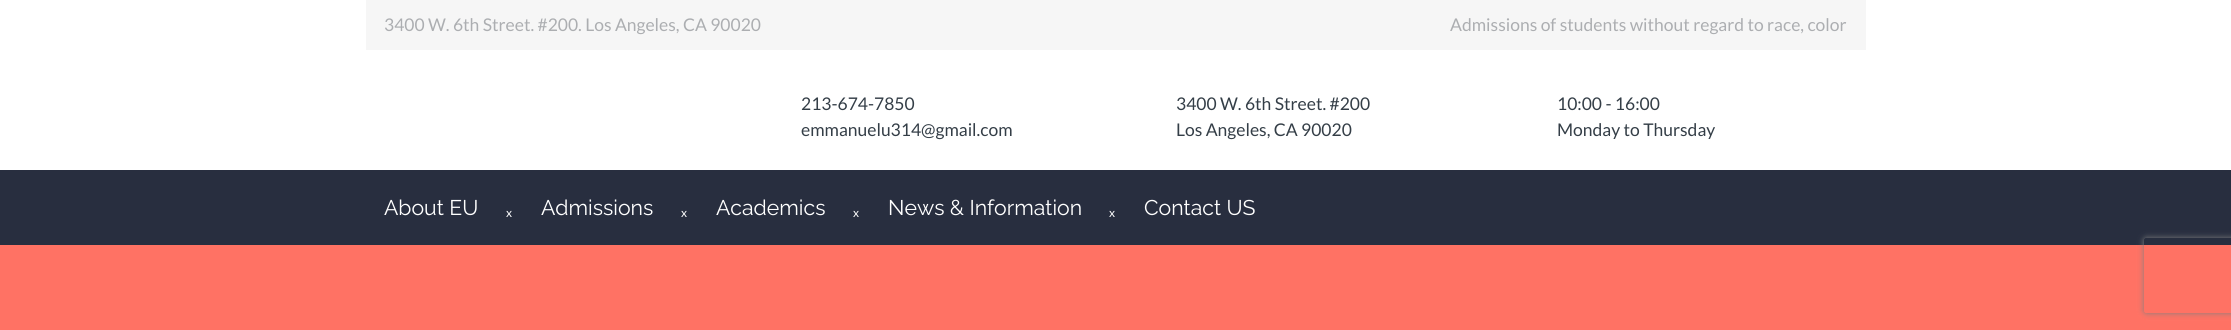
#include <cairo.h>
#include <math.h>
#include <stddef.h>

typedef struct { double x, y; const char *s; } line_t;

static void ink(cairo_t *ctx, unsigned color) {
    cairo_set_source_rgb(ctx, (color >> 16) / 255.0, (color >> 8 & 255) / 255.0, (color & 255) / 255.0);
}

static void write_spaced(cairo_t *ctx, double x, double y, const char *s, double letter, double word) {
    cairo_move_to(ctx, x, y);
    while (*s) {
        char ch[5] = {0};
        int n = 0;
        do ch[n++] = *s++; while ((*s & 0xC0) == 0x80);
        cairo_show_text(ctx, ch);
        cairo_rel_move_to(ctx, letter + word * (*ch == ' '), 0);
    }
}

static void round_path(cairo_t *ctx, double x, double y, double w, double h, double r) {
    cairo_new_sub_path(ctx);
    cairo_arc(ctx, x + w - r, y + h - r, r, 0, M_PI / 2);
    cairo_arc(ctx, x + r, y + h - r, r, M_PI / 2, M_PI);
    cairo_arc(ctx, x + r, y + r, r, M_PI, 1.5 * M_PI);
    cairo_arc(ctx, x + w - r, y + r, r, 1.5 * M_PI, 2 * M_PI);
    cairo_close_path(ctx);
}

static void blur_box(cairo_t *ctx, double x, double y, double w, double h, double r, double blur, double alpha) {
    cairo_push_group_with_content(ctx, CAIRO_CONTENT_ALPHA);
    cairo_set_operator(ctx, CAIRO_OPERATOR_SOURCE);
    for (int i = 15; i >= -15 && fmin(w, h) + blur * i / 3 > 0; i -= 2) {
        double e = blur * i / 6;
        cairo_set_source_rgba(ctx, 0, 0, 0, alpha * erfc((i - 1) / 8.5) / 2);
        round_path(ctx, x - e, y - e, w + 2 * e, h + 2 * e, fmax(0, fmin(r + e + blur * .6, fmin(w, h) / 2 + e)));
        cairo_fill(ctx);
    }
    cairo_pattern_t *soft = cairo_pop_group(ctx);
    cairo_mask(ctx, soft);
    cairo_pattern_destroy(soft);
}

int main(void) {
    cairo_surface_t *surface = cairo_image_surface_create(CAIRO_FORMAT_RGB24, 2231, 330);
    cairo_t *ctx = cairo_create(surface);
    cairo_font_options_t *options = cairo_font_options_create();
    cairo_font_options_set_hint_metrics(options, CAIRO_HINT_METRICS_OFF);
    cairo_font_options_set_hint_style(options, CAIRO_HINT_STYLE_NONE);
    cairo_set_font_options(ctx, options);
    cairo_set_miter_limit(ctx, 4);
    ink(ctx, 0xFFFFFF);
    cairo_paint(ctx);
    ink(ctx, 0xF6F6F6);
    cairo_rectangle(ctx, 366, 0, 1500, 50);
    cairo_fill(ctx);
    cairo_select_font_face(ctx, "Lato", CAIRO_FONT_SLANT_NORMAL, CAIRO_FONT_WEIGHT_NORMAL);
    cairo_set_font_size(ctx, 17.5);
    ink(ctx, 0xACAEB1);
    cairo_move_to(ctx, 384, 31);
    cairo_show_text(ctx, "3400 W. 6th Street. #200. Los Angeles, CA 90020");
    cairo_move_to(ctx, 1450, 31);
    cairo_show_text(ctx, "Admissions of students without regard to race, color");
    ink(ctx, 0x343E47);
    {
        static const line_t items[] = {
            {801, 110, "213-674-7850"},
            {801, 136, "emmanuelu314@gmail.com"},
            {1176, 110, "3400 W. 6th Street. #200"},
            {1176, 136, "Los Angeles, CA 90020"},
            {1557, 110, "10:00 - 16:00"},
            {1557, 136, "Monday to Thursday"},
        };
        for (size_t i = 0; i < sizeof items / sizeof *items; i++) {
            cairo_move_to(ctx, items[i].x, items[i].y);
            cairo_show_text(ctx, items[i].s);
        }
    }
    ink(ctx, 0x282E3F);
    cairo_rectangle(ctx, 0, 170, 2231, 75);
    cairo_fill(ctx);
    cairo_select_font_face(ctx, "Raleway", CAIRO_FONT_SLANT_NORMAL, CAIRO_FONT_WEIGHT_NORMAL);
    cairo_set_font_size(ctx, 21.25);
    ink(ctx, 0xFFFFFF);
    cairo_move_to(ctx, 384, 215);
    cairo_show_text(ctx, "About EU");
    cairo_select_font_face(ctx, "Lato", CAIRO_FONT_SLANT_NORMAL, CAIRO_FONT_WEIGHT_NORMAL);
    cairo_set_font_size(ctx, 12);
    write_spaced(ctx, 506, 217, "x", 2, 0);
    cairo_select_font_face(ctx, "Raleway", CAIRO_FONT_SLANT_NORMAL, CAIRO_FONT_WEIGHT_NORMAL);
    cairo_set_font_size(ctx, 21.25);
    cairo_move_to(ctx, 541, 215);
    cairo_show_text(ctx, "Admissions");
    cairo_select_font_face(ctx, "Lato", CAIRO_FONT_SLANT_NORMAL, CAIRO_FONT_WEIGHT_NORMAL);
    cairo_set_font_size(ctx, 12);
    write_spaced(ctx, 681, 217, "x", 2, 0);
    cairo_select_font_face(ctx, "Raleway", CAIRO_FONT_SLANT_NORMAL, CAIRO_FONT_WEIGHT_NORMAL);
    cairo_set_font_size(ctx, 21.25);
    cairo_move_to(ctx, 716, 215);
    cairo_show_text(ctx, "Academics");
    cairo_select_font_face(ctx, "Lato", CAIRO_FONT_SLANT_NORMAL, CAIRO_FONT_WEIGHT_NORMAL);
    cairo_set_font_size(ctx, 12);
    write_spaced(ctx, 853, 217, "x", 2, 0);
    cairo_select_font_face(ctx, "Raleway", CAIRO_FONT_SLANT_NORMAL, CAIRO_FONT_WEIGHT_NORMAL);
    cairo_set_font_size(ctx, 21.25);
    cairo_move_to(ctx, 888, 215);
    cairo_show_text(ctx, "News & Information");
    cairo_select_font_face(ctx, "Lato", CAIRO_FONT_SLANT_NORMAL, CAIRO_FONT_WEIGHT_NORMAL);
    cairo_set_font_size(ctx, 12);
    write_spaced(ctx, 1109, 217, "x", 2, 0);
    cairo_select_font_face(ctx, "Raleway", CAIRO_FONT_SLANT_NORMAL, CAIRO_FONT_WEIGHT_NORMAL);
    cairo_set_font_size(ctx, 21.25);
    cairo_move_to(ctx, 1144, 215);
    cairo_show_text(ctx, "Contact US");
    ink(ctx, 0xFF7264);
    cairo_rectangle(ctx, 0, 245, 2231, 85);
    cairo_fill(ctx);
    cairo_save(ctx);
    cairo_set_fill_rule(ctx, CAIRO_FILL_RULE_EVEN_ODD);
    cairo_new_path(ctx);
    cairo_move_to(ctx, 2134, 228);
    cairo_line_to(ctx, 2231, 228);
    cairo_line_to(ctx, 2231, 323);
    cairo_line_to(ctx, 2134, 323);
    cairo_close_path(ctx);
    cairo_move_to(ctx, 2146.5, 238);
    cairo_line_to(ctx, 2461.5, 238);
    cairo_curve_to(ctx, 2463, 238, 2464, 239, 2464, 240.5);
    cairo_line_to(ctx, 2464, 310.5);
    cairo_curve_to(ctx, 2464, 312, 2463, 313, 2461.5, 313);
    cairo_line_to(ctx, 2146.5, 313);
    cairo_curve_to(ctx, 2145, 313, 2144, 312, 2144, 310.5);
    cairo_line_to(ctx, 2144, 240.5);
    cairo_curve_to(ctx, 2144, 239, 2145, 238, 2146.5, 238);
    cairo_close_path(ctx);
    cairo_clip(ctx);
    ink(ctx, 0x808080);
    blur_box(ctx, 2144, 238, 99, 75, 2.5, 3, 1);
    cairo_restore(ctx);
    cairo_surface_write_to_png(surface, "image.png");
    cairo_font_options_destroy(options);
    cairo_destroy(ctx);
    cairo_surface_destroy(surface);
    return 0;
}
